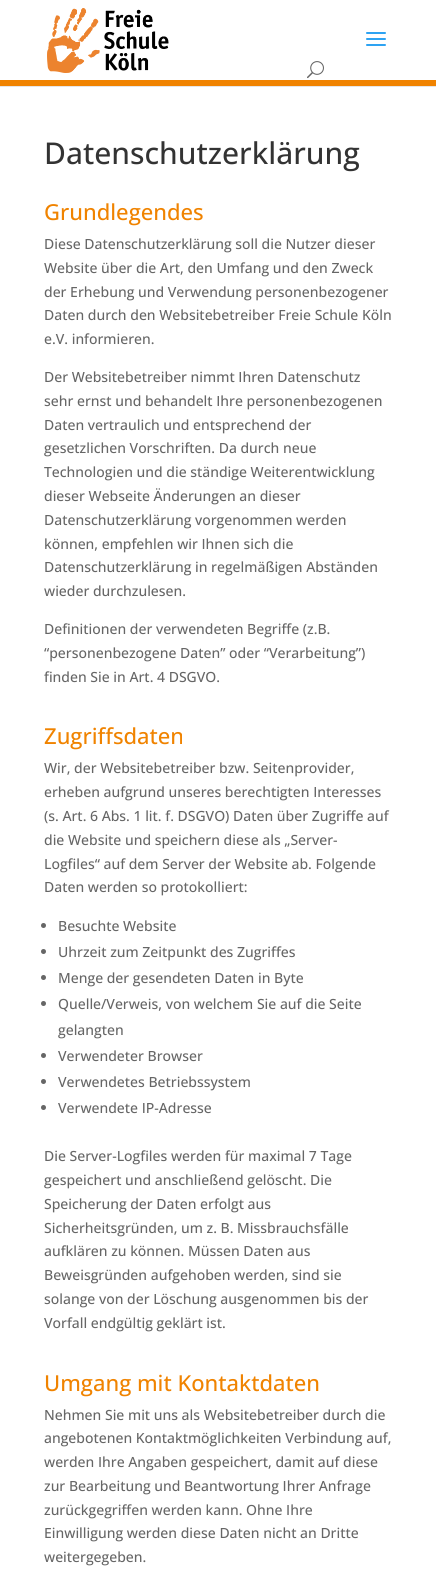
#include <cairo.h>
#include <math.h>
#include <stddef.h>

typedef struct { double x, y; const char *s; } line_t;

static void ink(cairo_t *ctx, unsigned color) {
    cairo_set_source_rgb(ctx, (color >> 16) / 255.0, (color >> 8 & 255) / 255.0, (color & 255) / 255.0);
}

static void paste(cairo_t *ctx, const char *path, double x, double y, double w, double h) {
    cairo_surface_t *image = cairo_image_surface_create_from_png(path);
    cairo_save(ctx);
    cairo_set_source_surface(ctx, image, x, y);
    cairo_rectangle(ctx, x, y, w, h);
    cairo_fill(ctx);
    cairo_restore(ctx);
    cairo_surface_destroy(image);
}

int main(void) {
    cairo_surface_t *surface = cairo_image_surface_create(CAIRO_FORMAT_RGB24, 436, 1581);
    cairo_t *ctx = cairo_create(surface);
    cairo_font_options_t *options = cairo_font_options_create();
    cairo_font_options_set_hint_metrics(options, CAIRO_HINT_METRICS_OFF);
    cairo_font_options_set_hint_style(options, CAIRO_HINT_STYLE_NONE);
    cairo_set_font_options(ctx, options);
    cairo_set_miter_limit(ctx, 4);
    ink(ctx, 0xFFFFFF);
    cairo_paint(ctx);
    ink(ctx, 0xE6E6E6);
    cairo_rectangle(ctx, 0, 86, 436, 1);
    cairo_fill(ctx);
    ink(ctx, 0xF08300);
    cairo_rectangle(ctx, 0, 80, 436, 6);
    cairo_fill(ctx);
    paste(ctx, "media/1.png", 47, 8, 122, 65);
    paste(ctx, "media/2.png", 366, 32, 20, 14);
    paste(ctx, "media/3.png", 307, 61, 17, 18);
    cairo_select_font_face(ctx, "Open Sans Medium", CAIRO_FONT_SLANT_NORMAL, CAIRO_FONT_WEIGHT_NORMAL);
    cairo_set_font_size(ctx, 30);
    ink(ctx, 0x333333);
    cairo_move_to(ctx, 44, 164);
    cairo_show_text(ctx, "Datenschutzerklärung");
    cairo_set_font_size(ctx, 22);
    ink(ctx, 0xF08300);
    cairo_move_to(ctx, 44, 220);
    cairo_show_text(ctx, "Grundlegendes");
    cairo_set_font_size(ctx, 14);
    ink(ctx, 0x666666);
    {
        static const line_t items[] = {
            {44, 249, "Diese Datenschutzerklärung soll die Nutzer dieser"},
            {44, 273, "Website über die Art, den Umfang und den Zweck"},
            {44, 297, "der Erhebung und Verwendung personenbezogener"},
            {44, 320, "Daten durch den Websitebetreiber Freie Schule Köln"},
            {44, 344, "e.V. informieren."},
            {44, 382, "Der Websitebetreiber nimmt Ihren Datenschutz"},
            {44, 406, "sehr ernst und behandelt Ihre personenbezogenen"},
            {44, 430, "Daten vertraulich und entsprechend der"},
            {44, 453, "gesetzlichen Vorschriften. Da durch neue"},
            {44, 477, "Technologien und die ständige Weiterentwicklung"},
            {44, 501, "dieser Webseite Änderungen an dieser"},
            {44, 525, "Datenschutzerklärung vorgenommen werden"},
            {44, 549, "können, empfehlen wir Ihnen sich die"},
            {44, 572, "Datenschutzerklärung in regelmäßigen Abständen"},
            {44, 596, "wieder durchzulesen."},
            {44, 634, "Definitionen der verwendeten Begriffe (z.B."},
            {44, 658, "“personenbezogene Daten” oder “Verarbeitung”)"},
            {44, 682, "finden Sie in Art. 4 DSGVO."},
        };
        for (size_t i = 0; i < sizeof items / sizeof *items; i++) {
            cairo_move_to(ctx, items[i].x, items[i].y);
            cairo_show_text(ctx, items[i].s);
        }
    }
    cairo_set_font_size(ctx, 22);
    ink(ctx, 0xF08300);
    cairo_move_to(ctx, 44, 744);
    cairo_show_text(ctx, "Zugriffsdaten");
    cairo_set_font_size(ctx, 14);
    ink(ctx, 0x666666);
    {
        static const line_t items[] = {
            {44, 773, "Wir, der Websitebetreiber bzw. Seitenprovider,"},
            {44, 797, "erheben aufgrund unseres berechtigten Interesses"},
            {44, 821, "(s. Art. 6 Abs. 1 lit. f. DSGVO) Daten über Zugriffe auf"},
            {44, 845, "die Website und speichern diese als „Server-"},
            {44, 869, "Logfiles“ auf dem Server der Website ab. Folgende"},
            {44, 892, "Daten werden so protokolliert:"},
        };
        for (size_t i = 0; i < sizeof items / sizeof *items; i++) {
            cairo_move_to(ctx, items[i].x, items[i].y);
            cairo_show_text(ctx, items[i].s);
        }
    }
    cairo_new_path(ctx);
    cairo_arc(ctx, 43.5, 925.5, 2.5, 0, 2 * M_PI);
    cairo_fill(ctx);
    cairo_move_to(ctx, 58, 931);
    cairo_show_text(ctx, "Besuchte Website");
    cairo_new_path(ctx);
    cairo_arc(ctx, 43.5, 951.5, 2.5, 0, 2 * M_PI);
    cairo_fill(ctx);
    cairo_move_to(ctx, 58, 957);
    cairo_show_text(ctx, "Uhrzeit zum Zeitpunkt des Zugriffes");
    cairo_new_path(ctx);
    cairo_arc(ctx, 43.5, 977.5, 2.5, 0, 2 * M_PI);
    cairo_fill(ctx);
    cairo_move_to(ctx, 58, 983);
    cairo_show_text(ctx, "Menge der gesendeten Daten in Byte");
    cairo_new_path(ctx);
    cairo_arc(ctx, 43.5, 1003.5, 2.5, 0, 2 * M_PI);
    cairo_fill(ctx);
    cairo_move_to(ctx, 58, 1009);
    cairo_show_text(ctx, "Quelle/Verweis, von welchem Sie auf die Seite");
    cairo_move_to(ctx, 58, 1035);
    cairo_show_text(ctx, "gelangten");
    cairo_new_path(ctx);
    cairo_arc(ctx, 43.5, 1055.5, 2.5, 0, 2 * M_PI);
    cairo_fill(ctx);
    cairo_move_to(ctx, 58, 1061);
    cairo_show_text(ctx, "Verwendeter Browser");
    cairo_new_path(ctx);
    cairo_arc(ctx, 43.5, 1081.5, 2.5, 0, 2 * M_PI);
    cairo_fill(ctx);
    cairo_move_to(ctx, 58, 1087);
    cairo_show_text(ctx, "Verwendetes Betriebssystem");
    cairo_new_path(ctx);
    cairo_arc(ctx, 43.5, 1107.5, 2.5, 0, 2 * M_PI);
    cairo_fill(ctx);
    {
        static const line_t items[] = {
            {58, 1113, "Verwendete IP-Adresse"},
            {44, 1161, "Die Server-Logfiles werden für maximal 7 Tage"},
            {44, 1185, "gespeichert und anschließend gelöscht. Die"},
            {44, 1209, "Speicherung der Daten erfolgt aus"},
            {44, 1233, "Sicherheitsgründen, um z. B. Missbrauchsfälle"},
            {44, 1256, "aufklären zu können. Müssen Daten aus"},
            {44, 1280, "Beweisgründen aufgehoben werden, sind sie"},
            {44, 1304, "solange von der Löschung ausgenommen bis der"},
            {44, 1328, "Vorfall endgültig geklärt ist."},
        };
        for (size_t i = 0; i < sizeof items / sizeof *items; i++) {
            cairo_move_to(ctx, items[i].x, items[i].y);
            cairo_show_text(ctx, items[i].s);
        }
    }
    cairo_set_font_size(ctx, 22);
    ink(ctx, 0xF08300);
    cairo_move_to(ctx, 44, 1391);
    cairo_show_text(ctx, "Umgang mit Kontaktdaten");
    cairo_set_font_size(ctx, 14);
    ink(ctx, 0x666666);
    {
        static const line_t items[] = {
            {44, 1420, "Nehmen Sie mit uns als Websitebetreiber durch die"},
            {44, 1443, "angebotenen Kontaktmöglichkeiten Verbindung auf,"},
            {44, 1467, "werden Ihre Angaben gespeichert, damit auf diese"},
            {44, 1491, "zur Bearbeitung und Beantwortung Ihrer Anfrage"},
            {44, 1515, "zurückgegriffen werden kann. Ohne Ihre"},
            {44, 1538, "Einwilligung werden diese Daten nicht an Dritte"},
            {44, 1562, "weitergegeben."},
        };
        for (size_t i = 0; i < sizeof items / sizeof *items; i++) {
            cairo_move_to(ctx, items[i].x, items[i].y);
            cairo_show_text(ctx, items[i].s);
        }
    }
    cairo_surface_write_to_png(surface, "image.png");
    cairo_font_options_destroy(options);
    cairo_destroy(ctx);
    cairo_surface_destroy(surface);
    return 0;
}
